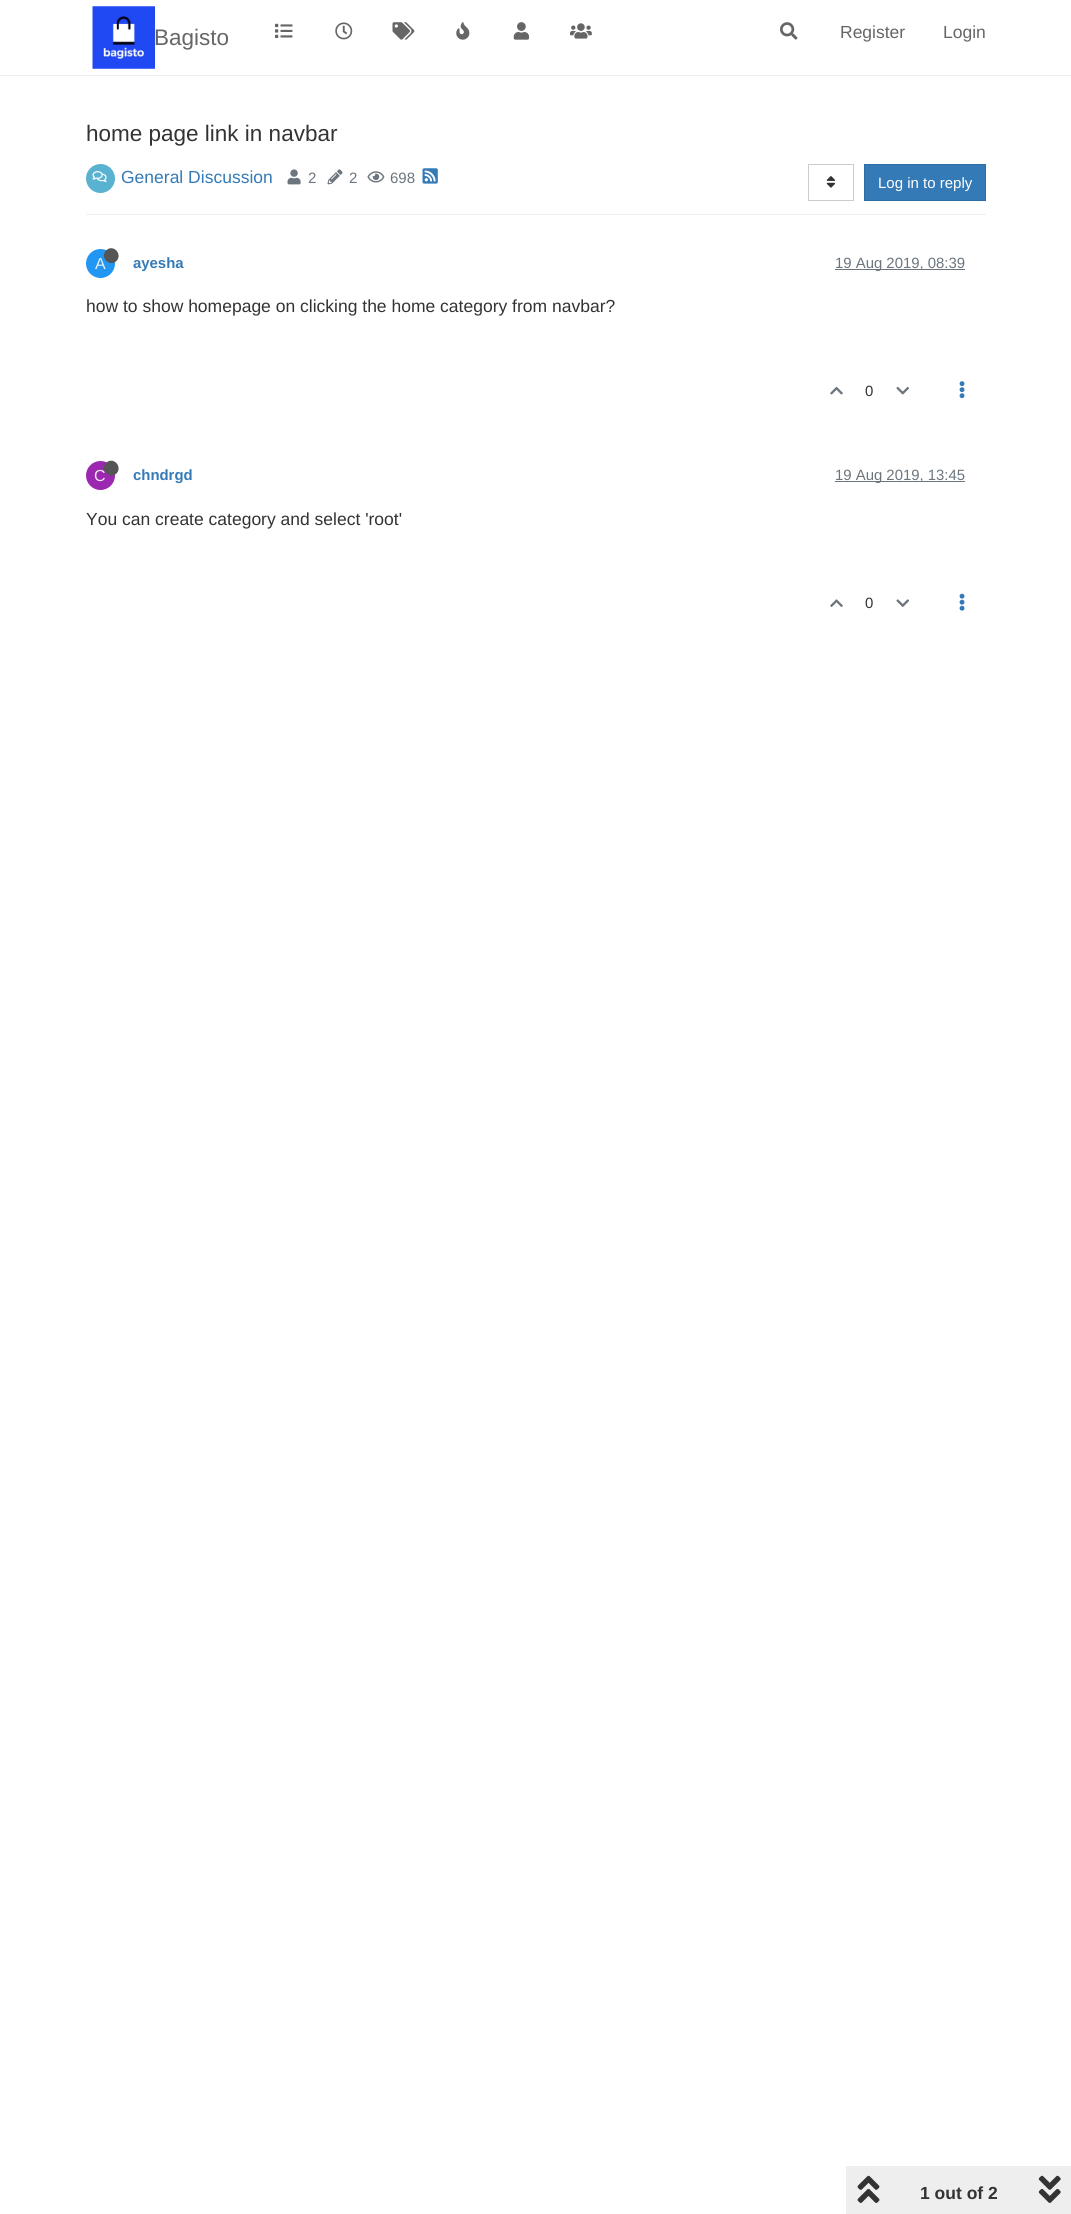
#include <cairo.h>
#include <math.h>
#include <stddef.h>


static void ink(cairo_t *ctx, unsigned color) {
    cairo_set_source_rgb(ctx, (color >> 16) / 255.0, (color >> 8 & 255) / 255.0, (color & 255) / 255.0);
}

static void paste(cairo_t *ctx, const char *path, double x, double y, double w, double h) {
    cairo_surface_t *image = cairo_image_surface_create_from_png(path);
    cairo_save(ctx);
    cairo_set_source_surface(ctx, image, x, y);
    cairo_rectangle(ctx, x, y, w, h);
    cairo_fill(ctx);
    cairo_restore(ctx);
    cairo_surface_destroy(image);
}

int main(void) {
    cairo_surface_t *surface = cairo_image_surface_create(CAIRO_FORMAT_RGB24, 1071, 2214);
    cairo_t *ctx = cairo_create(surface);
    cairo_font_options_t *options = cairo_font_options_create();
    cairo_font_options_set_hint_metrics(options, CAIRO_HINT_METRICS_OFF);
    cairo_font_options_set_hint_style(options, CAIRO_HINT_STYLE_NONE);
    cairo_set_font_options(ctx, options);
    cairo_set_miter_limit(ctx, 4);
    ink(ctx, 0xFFFFFF);
    cairo_paint(ctx);
    ink(ctx, 0xEEEEEE);
    cairo_rectangle(ctx, 0, 75, 1071, 1);
    cairo_fill(ctx);
    paste(ctx, "media/1.png", 92, 6, 63, 63);
    cairo_select_font_face(ctx, "Liberation Sans", CAIRO_FONT_SLANT_NORMAL, CAIRO_FONT_WEIGHT_NORMAL);
    cairo_set_font_size(ctx, 22.5);
    ink(ctx, 0x666666);
    cairo_move_to(ctx, 154, 45);
    cairo_show_text(ctx, "Bagisto");
    paste(ctx, "media/2.png", 275, 23, 18, 16);
    paste(ctx, "media/3.png", 335, 22, 18, 18);
    paste(ctx, "media/4.png", 392, 22, 23, 18);
    paste(ctx, "media/5.png", 456, 22, 14, 18);
    paste(ctx, "media/6.png", 513, 22, 17, 18);
    paste(ctx, "media/7.png", 570, 23, 22, 16);
    paste(ctx, "media/8.png", 780, 22, 18, 18);
    cairo_set_font_size(ctx, 17.5);
    cairo_move_to(ctx, 840, 38);
    cairo_show_text(ctx, "Register");
    cairo_move_to(ctx, 943, 38);
    cairo_show_text(ctx, "Login");
    cairo_set_font_size(ctx, 22.5);
    ink(ctx, 0x333333);
    cairo_move_to(ctx, 86, 141);
    cairo_show_text(ctx, "home page link in navbar");
    ink(ctx, 0xEEEEEE);
    cairo_rectangle(ctx, 86, 214, 900, 1);
    cairo_fill(ctx);
    ink(ctx, 0x59B3D0);
    cairo_arc(ctx, 100.5, 178.5, 14.5, 0, 2 * M_PI);
    cairo_fill(ctx);
    paste(ctx, "media/9.png", 92, 171, 15, 11);
    cairo_set_font_size(ctx, 17.5);
    ink(ctx, 0x337AB7);
    cairo_move_to(ctx, 121, 183);
    cairo_show_text(ctx, "General Discussion");
    paste(ctx, "media/10.png", 287, 169, 14, 16);
    cairo_set_font_size(ctx, 15);
    ink(ctx, 0x6C757D);
    cairo_move_to(ctx, 308, 183);
    cairo_show_text(ctx, "2");
    paste(ctx, "media/11.png", 327, 169, 16, 16);
    cairo_move_to(ctx, 349, 183);
    cairo_show_text(ctx, "2");
    paste(ctx, "media/12.png", 367, 171, 18, 12);
    cairo_move_to(ctx, 390, 183);
    cairo_show_text(ctx, "698");
    paste(ctx, "media/13.png", 422, 168, 16, 16);
    cairo_rectangle(ctx, 808.5, 164.5, 45, 36);
    ink(ctx, 0xCCCCCC);
    cairo_set_line_width(ctx, 1);
    cairo_stroke(ctx);
    paste(ctx, "media/14.png", 826, 176, 10, 12);
    ink(ctx, 0x337AB7);
    cairo_rectangle(ctx, 864.5, 164.5, 121, 36);
    cairo_fill_preserve(ctx);
    ink(ctx, 0x2E6DA4);
    cairo_stroke(ctx);
    ink(ctx, 0xFFFFFF);
    cairo_move_to(ctx, 878, 188);
    cairo_show_text(ctx, "Log in to reply");
    ink(ctx, 0x2196F3);
    cairo_new_path(ctx);
    cairo_arc(ctx, 100.5, 263.5, 14.5, 0, 2 * M_PI);
    cairo_fill(ctx);
    cairo_set_font_size(ctx, 16);
    ink(ctx, 0xEEEEEE);
    cairo_move_to(ctx, 95, 269);
    cairo_show_text(ctx, "A");
    ink(ctx, 0x555555);
    cairo_new_path(ctx);
    cairo_move_to(ctx, 106, 250.5);
    cairo_curve_to(ctx, 113, 243.5, 123, 254, 116.5, 261);
    cairo_curve_to(ctx, 109.5, 267.5, 99.5, 257, 106, 250.5);
    cairo_close_path(ctx);
    cairo_fill(ctx);
    cairo_select_font_face(ctx, "Liberation Sans", CAIRO_FONT_SLANT_NORMAL, CAIRO_FONT_WEIGHT_BOLD);
    cairo_set_font_size(ctx, 14.9);
    ink(ctx, 0x337AB7);
    cairo_move_to(ctx, 133, 268);
    cairo_show_text(ctx, "ayesha");
    ink(ctx, 0x6C757D);
    cairo_rectangle(ctx, 835, 269, 130, 1);
    cairo_fill(ctx);
    cairo_select_font_face(ctx, "Liberation Sans", CAIRO_FONT_SLANT_NORMAL, CAIRO_FONT_WEIGHT_NORMAL);
    cairo_move_to(ctx, 835, 268);
    cairo_show_text(ctx, "19 Aug 2019, 08:39");
    cairo_set_font_size(ctx, 17.5);
    ink(ctx, 0x333333);
    cairo_move_to(ctx, 86, 312);
    cairo_show_text(ctx, "how to show homepage on clicking the home category from navbar?");
    paste(ctx, "media/15.png", 830, 386, 13, 9);
    cairo_set_font_size(ctx, 14.9);
    cairo_move_to(ctx, 865, 396);
    cairo_show_text(ctx, "0");
    paste(ctx, "media/16.png", 896, 386, 13, 9);
    paste(ctx, "media/17.png", 959, 381, 6, 18);
    ink(ctx, 0x9C27B0);
    cairo_arc(ctx, 100.5, 475.5, 14.5, 0, 2 * M_PI);
    cairo_fill(ctx);
    cairo_set_font_size(ctx, 16);
    ink(ctx, 0xEEEEEE);
    cairo_move_to(ctx, 94, 481);
    cairo_show_text(ctx, "C");
    ink(ctx, 0x555555);
    cairo_new_path(ctx);
    cairo_move_to(ctx, 106, 463);
    cairo_curve_to(ctx, 113, 456, 123, 466.5, 116.5, 473.5);
    cairo_curve_to(ctx, 109.5, 480, 99.5, 469.5, 106, 463);
    cairo_close_path(ctx);
    cairo_fill(ctx);
    cairo_select_font_face(ctx, "Liberation Sans", CAIRO_FONT_SLANT_NORMAL, CAIRO_FONT_WEIGHT_BOLD);
    cairo_set_font_size(ctx, 14.9);
    ink(ctx, 0x337AB7);
    cairo_move_to(ctx, 133, 480);
    cairo_show_text(ctx, "chndrgd");
    ink(ctx, 0x6C757D);
    cairo_rectangle(ctx, 835, 481, 130, 1);
    cairo_fill(ctx);
    cairo_select_font_face(ctx, "Liberation Sans", CAIRO_FONT_SLANT_NORMAL, CAIRO_FONT_WEIGHT_NORMAL);
    cairo_move_to(ctx, 835, 480);
    cairo_show_text(ctx, "19 Aug 2019, 13:45");
    cairo_set_font_size(ctx, 17.5);
    ink(ctx, 0x333333);
    cairo_move_to(ctx, 86, 525);
    cairo_show_text(ctx, "You can create category and select 'root'");
    paste(ctx, "media/18.png", 830, 599, 13, 8);
    cairo_set_font_size(ctx, 14.9);
    cairo_move_to(ctx, 865, 608);
    cairo_show_text(ctx, "0");
    paste(ctx, "media/19.png", 896, 599, 13, 8);
    paste(ctx, "media/20.png", 959, 593, 6, 18);
    ink(ctx, 0xEEEEEE);
    cairo_rectangle(ctx, 846, 2166, 225, 48);
    cairo_fill(ctx);
    paste(ctx, "media/21.png", 857, 2175, 23, 28);
    cairo_select_font_face(ctx, "Liberation Sans", CAIRO_FONT_SLANT_NORMAL, CAIRO_FONT_WEIGHT_BOLD);
    cairo_set_font_size(ctx, 17.5);
    ink(ctx, 0x333333);
    cairo_move_to(ctx, 920, 2199);
    cairo_show_text(ctx, "1 out of 2");
    paste(ctx, "media/22.png", 1038, 2175, 23, 28);
    cairo_surface_write_to_png(surface, "image.png");
    cairo_font_options_destroy(options);
    cairo_destroy(ctx);
    cairo_surface_destroy(surface);
    return 0;
}
